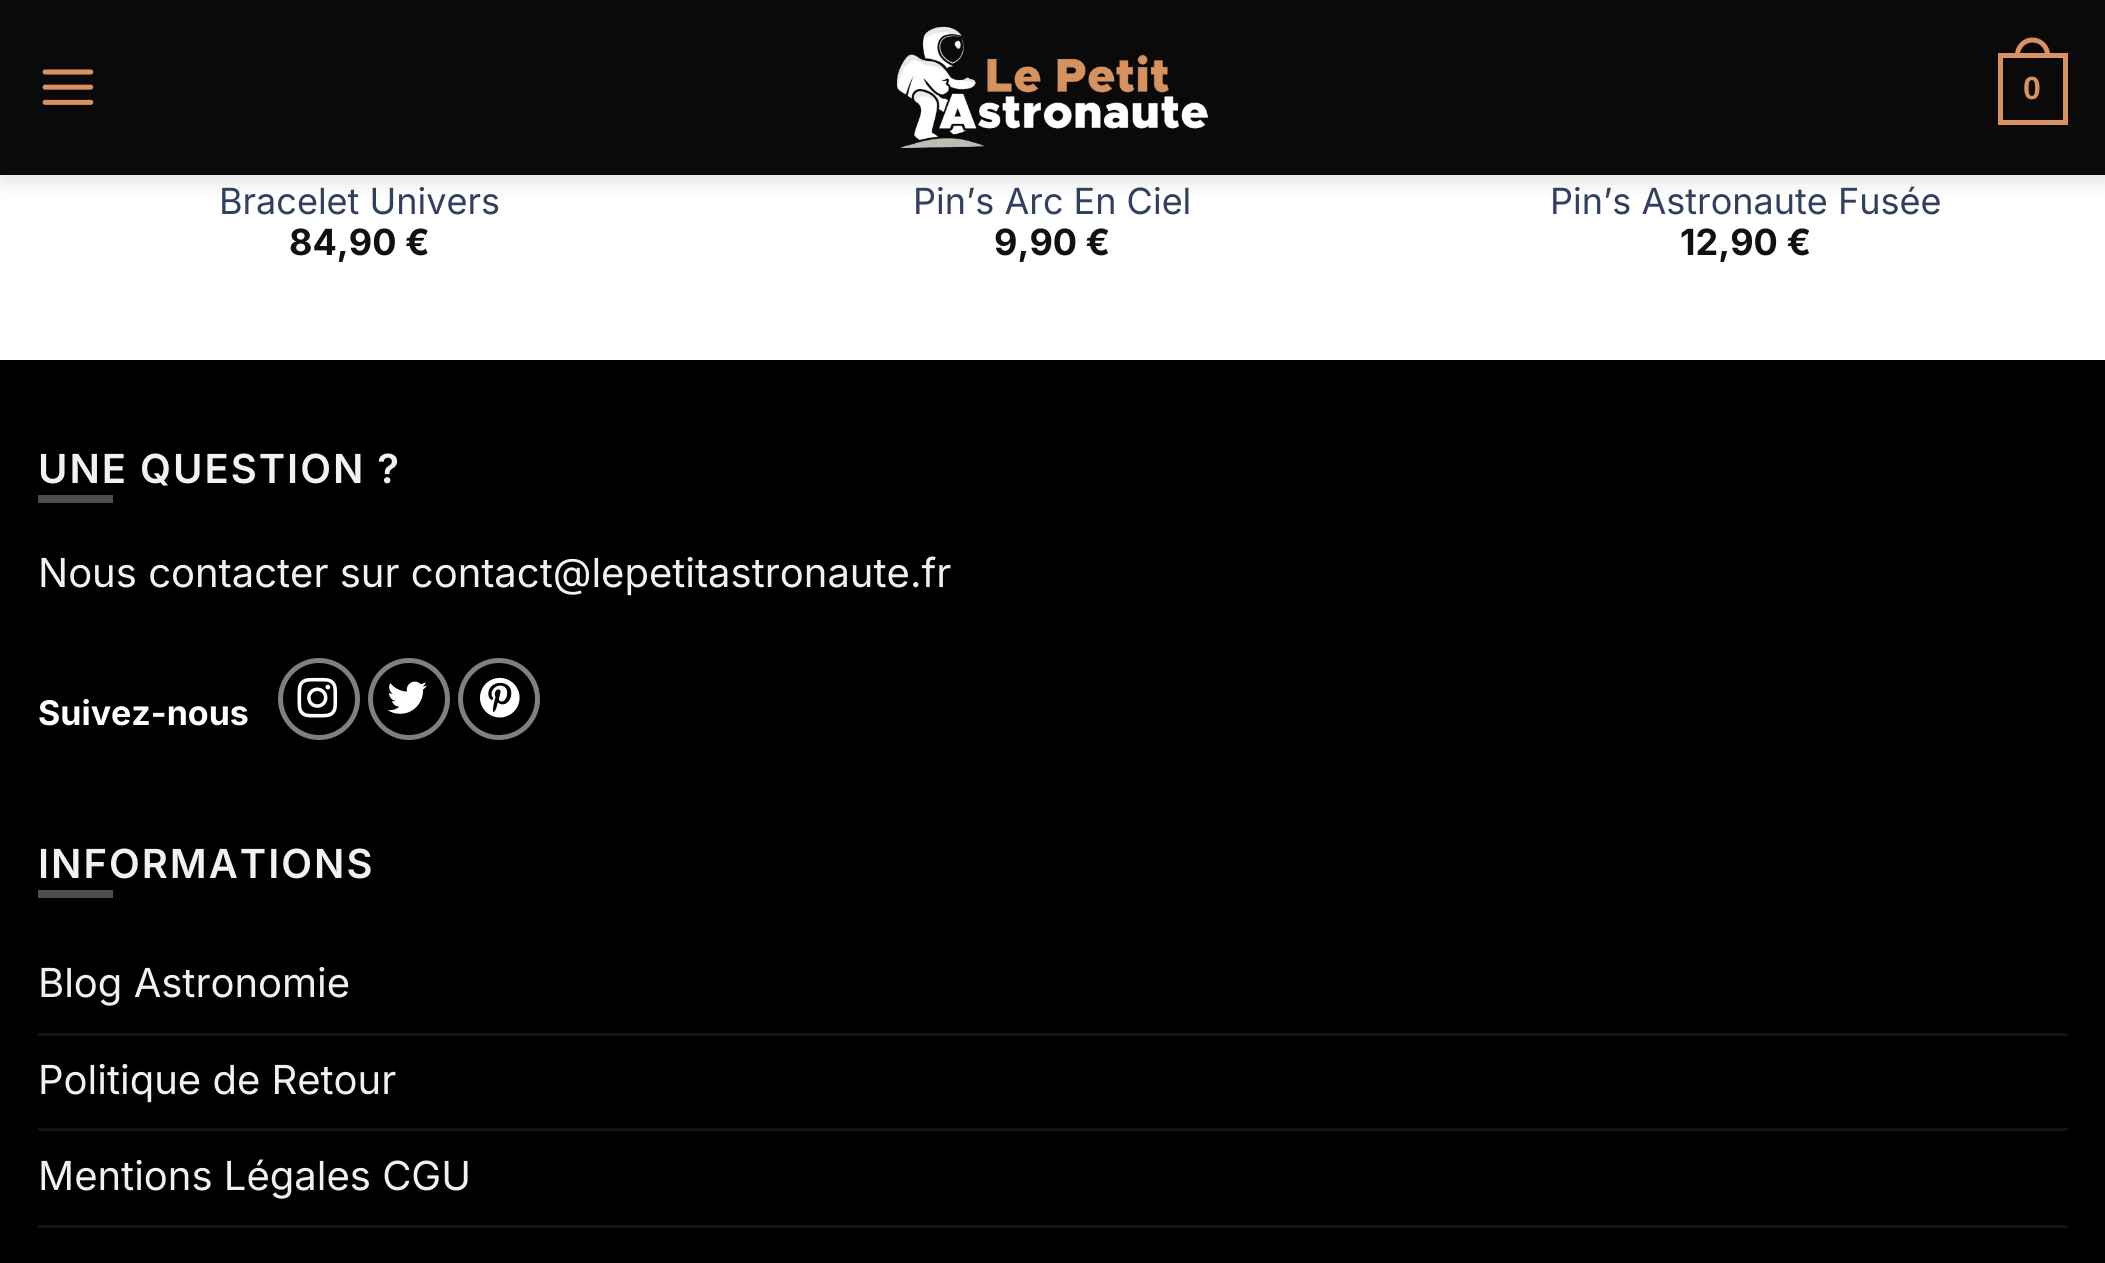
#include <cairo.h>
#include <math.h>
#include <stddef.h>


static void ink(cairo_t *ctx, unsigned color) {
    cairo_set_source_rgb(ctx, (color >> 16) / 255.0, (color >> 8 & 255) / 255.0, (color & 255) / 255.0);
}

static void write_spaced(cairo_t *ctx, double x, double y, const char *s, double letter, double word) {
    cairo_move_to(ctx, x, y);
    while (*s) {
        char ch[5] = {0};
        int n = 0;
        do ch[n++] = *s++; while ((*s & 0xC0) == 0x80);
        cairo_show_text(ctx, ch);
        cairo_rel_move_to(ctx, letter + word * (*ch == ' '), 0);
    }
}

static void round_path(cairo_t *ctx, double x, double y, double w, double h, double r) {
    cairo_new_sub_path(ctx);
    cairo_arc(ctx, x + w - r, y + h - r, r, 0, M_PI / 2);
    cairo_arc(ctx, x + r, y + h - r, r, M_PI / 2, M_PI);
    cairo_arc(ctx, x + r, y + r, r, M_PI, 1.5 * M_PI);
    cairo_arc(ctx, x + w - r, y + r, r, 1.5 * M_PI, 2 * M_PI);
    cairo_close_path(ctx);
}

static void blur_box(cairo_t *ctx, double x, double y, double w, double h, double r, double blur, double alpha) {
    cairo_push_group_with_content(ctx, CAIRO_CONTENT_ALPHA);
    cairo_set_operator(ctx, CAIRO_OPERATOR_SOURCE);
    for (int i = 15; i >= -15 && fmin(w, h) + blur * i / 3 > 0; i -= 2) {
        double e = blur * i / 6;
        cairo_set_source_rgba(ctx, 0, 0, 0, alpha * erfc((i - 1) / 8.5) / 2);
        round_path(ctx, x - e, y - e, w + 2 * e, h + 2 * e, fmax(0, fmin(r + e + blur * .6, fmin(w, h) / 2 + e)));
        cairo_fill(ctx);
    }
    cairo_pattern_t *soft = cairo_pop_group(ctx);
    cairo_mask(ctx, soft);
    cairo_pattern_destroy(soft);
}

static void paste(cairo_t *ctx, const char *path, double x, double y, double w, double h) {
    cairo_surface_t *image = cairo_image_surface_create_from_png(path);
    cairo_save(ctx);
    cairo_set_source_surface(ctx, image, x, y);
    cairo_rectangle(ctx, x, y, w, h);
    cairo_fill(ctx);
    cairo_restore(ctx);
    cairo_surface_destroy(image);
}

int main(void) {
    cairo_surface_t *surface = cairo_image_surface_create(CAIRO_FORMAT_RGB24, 2105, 1263);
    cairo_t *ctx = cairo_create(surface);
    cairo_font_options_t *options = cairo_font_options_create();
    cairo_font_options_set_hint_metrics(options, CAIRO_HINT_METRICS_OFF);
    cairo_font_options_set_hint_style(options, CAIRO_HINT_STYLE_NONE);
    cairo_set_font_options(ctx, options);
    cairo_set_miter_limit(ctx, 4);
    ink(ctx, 0xFFFFFF);
    cairo_paint(ctx);
    ink(ctx, 0x000000);
    blur_box(ctx, 3, 3, 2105, 175, 0, 12.5, 0.15);
    ink(ctx, 0x0A0A0A);
    cairo_rectangle(ctx, 0, 0, 2105, 175);
    cairo_fill(ctx);
    paste(ctx, "media/1.png", 42, 69, 52, 36);
    paste(ctx, "media/2.png", 897, 26, 311, 124);
    cairo_rectangle(ctx, 2000.5, 55.5, 65, 67);
    ink(ctx, 0xD8925F);
    cairo_set_line_width(ctx, 5);
    cairo_stroke(ctx);
    cairo_set_fill_rule(ctx, CAIRO_FILL_RULE_EVEN_ODD);
    cairo_new_path(ctx);
    cairo_move_to(ctx, 2032.5, 37.5);
    cairo_curve_to(ctx, 2042, 37.5, 2050, 45.5, 2050, 55);
    cairo_line_to(ctx, 2050, 57.5);
    cairo_line_to(ctx, 2015, 57.5);
    cairo_line_to(ctx, 2015, 55);
    cairo_curve_to(ctx, 2015, 45.5, 2023, 37.5, 2032.5, 37.5);
    cairo_close_path(ctx);
    cairo_move_to(ctx, 2032.5, 42.5);
    cairo_curve_to(ctx, 2039.5, 42.5, 2045, 48, 2045, 55);
    cairo_line_to(ctx, 2045, 57.5);
    cairo_line_to(ctx, 2020, 57.5);
    cairo_line_to(ctx, 2020, 55);
    cairo_curve_to(ctx, 2020, 48, 2025.5, 42.5, 2032.5, 42.5);
    cairo_close_path(ctx);
    cairo_fill(ctx);
    cairo_select_font_face(ctx, "Liberation Sans", CAIRO_FONT_SLANT_NORMAL, CAIRO_FONT_WEIGHT_BOLD);
    cairo_set_font_size(ctx, 32);
    cairo_move_to(ctx, 2023, 99);
    cairo_show_text(ctx, "0");
    cairo_select_font_face(ctx, "Inter", CAIRO_FONT_SLANT_NORMAL, CAIRO_FONT_WEIGHT_NORMAL);
    cairo_set_font_size(ctx, 36);
    ink(ctx, 0x314060);
    cairo_move_to(ctx, 219, 214);
    cairo_show_text(ctx, "Bracelet Univers");
    cairo_select_font_face(ctx, "Inter", CAIRO_FONT_SLANT_NORMAL, CAIRO_FONT_WEIGHT_BOLD);
    ink(ctx, 0x111111);
    cairo_move_to(ctx, 289, 255);
    cairo_show_text(ctx, "84,90 €");
    cairo_select_font_face(ctx, "Inter", CAIRO_FONT_SLANT_NORMAL, CAIRO_FONT_WEIGHT_NORMAL);
    ink(ctx, 0x314060);
    cairo_move_to(ctx, 913, 214);
    cairo_show_text(ctx, "Pin’s Arc En Ciel");
    cairo_select_font_face(ctx, "Inter", CAIRO_FONT_SLANT_NORMAL, CAIRO_FONT_WEIGHT_BOLD);
    ink(ctx, 0x111111);
    cairo_move_to(ctx, 994, 255);
    cairo_show_text(ctx, "9,90 €");
    cairo_select_font_face(ctx, "Inter", CAIRO_FONT_SLANT_NORMAL, CAIRO_FONT_WEIGHT_NORMAL);
    ink(ctx, 0x314060);
    cairo_move_to(ctx, 1550, 214);
    cairo_show_text(ctx, "Pin’s Astronaute Fusée");
    cairo_select_font_face(ctx, "Inter", CAIRO_FONT_SLANT_NORMAL, CAIRO_FONT_WEIGHT_BOLD);
    ink(ctx, 0x111111);
    cairo_move_to(ctx, 1680, 255);
    cairo_show_text(ctx, "12,90 €");
    ink(ctx, 0x000000);
    cairo_rectangle(ctx, 0, 360, 2105, 903);
    cairo_fill(ctx);
    cairo_select_font_face(ctx, "Inter SemiBold", CAIRO_FONT_SLANT_NORMAL, CAIRO_FONT_WEIGHT_NORMAL);
    cairo_set_font_size(ctx, 40);
    ink(ctx, 0xF1F1F1);
    write_spaced(ctx, 38, 483, "UNE QUESTION ?", 2, 0);
    ink(ctx, 0x4D4D4D);
    cairo_rectangle(ctx, 38, 495, 75, 8);
    cairo_fill(ctx);
    cairo_select_font_face(ctx, "Inter", CAIRO_FONT_SLANT_NORMAL, CAIRO_FONT_WEIGHT_NORMAL);
    ink(ctx, 0xF1F1F1);
    cairo_move_to(ctx, 38, 587);
    cairo_show_text(ctx, "Nous contacter sur contact@lepetitastronaute.fr");
    cairo_select_font_face(ctx, "Inter", CAIRO_FONT_SLANT_NORMAL, CAIRO_FONT_WEIGHT_BOLD);
    cairo_set_font_size(ctx, 34);
    ink(ctx, 0xFFFFFF);
    cairo_move_to(ctx, 38, 725);
    cairo_show_text(ctx, "Suivez-nous");
    cairo_new_path(ctx);
    cairo_arc(ctx, 319, 699, 38.5, 0, 2 * M_PI);
    ink(ctx, 0x808080);
    cairo_stroke(ctx);
    paste(ctx, "media/3.png", 297, 677, 41, 41);
    cairo_arc(ctx, 409, 699, 38.5, 0, 2 * M_PI);
    cairo_stroke(ctx);
    paste(ctx, "media/4.png", 387, 681, 40, 33);
    cairo_arc(ctx, 499, 699, 38.5, 0, 2 * M_PI);
    cairo_stroke(ctx);
    paste(ctx, "media/5.png", 480, 677, 40, 41);
    cairo_select_font_face(ctx, "Inter SemiBold", CAIRO_FONT_SLANT_NORMAL, CAIRO_FONT_WEIGHT_NORMAL);
    cairo_set_font_size(ctx, 40);
    ink(ctx, 0xF1F1F1);
    write_spaced(ctx, 38, 878, "INFORMATIONS", 2, 0);
    ink(ctx, 0x4D4D4D);
    cairo_rectangle(ctx, 38, 890, 75, 8);
    cairo_fill(ctx);
    cairo_select_font_face(ctx, "Inter", CAIRO_FONT_SLANT_NORMAL, CAIRO_FONT_WEIGHT_NORMAL);
    ink(ctx, 0xF1F1F1);
    cairo_move_to(ctx, 38, 997);
    cairo_show_text(ctx, "Blog Astronomie");
    ink(ctx, 0x141414);
    cairo_rectangle(ctx, 38, 1033, 2030, 3);
    cairo_fill(ctx);
    ink(ctx, 0xF1F1F1);
    cairo_move_to(ctx, 38, 1094);
    cairo_show_text(ctx, "Politique de Retour");
    ink(ctx, 0x141414);
    cairo_rectangle(ctx, 38, 1128, 2030, 3);
    cairo_fill(ctx);
    ink(ctx, 0xF1F1F1);
    cairo_move_to(ctx, 38, 1190);
    cairo_show_text(ctx, "Mentions Légales CGU");
    ink(ctx, 0x141414);
    cairo_rectangle(ctx, 38, 1225, 2030, 3);
    cairo_fill(ctx);
    cairo_surface_write_to_png(surface, "image.png");
    cairo_font_options_destroy(options);
    cairo_destroy(ctx);
    cairo_surface_destroy(surface);
    return 0;
}
